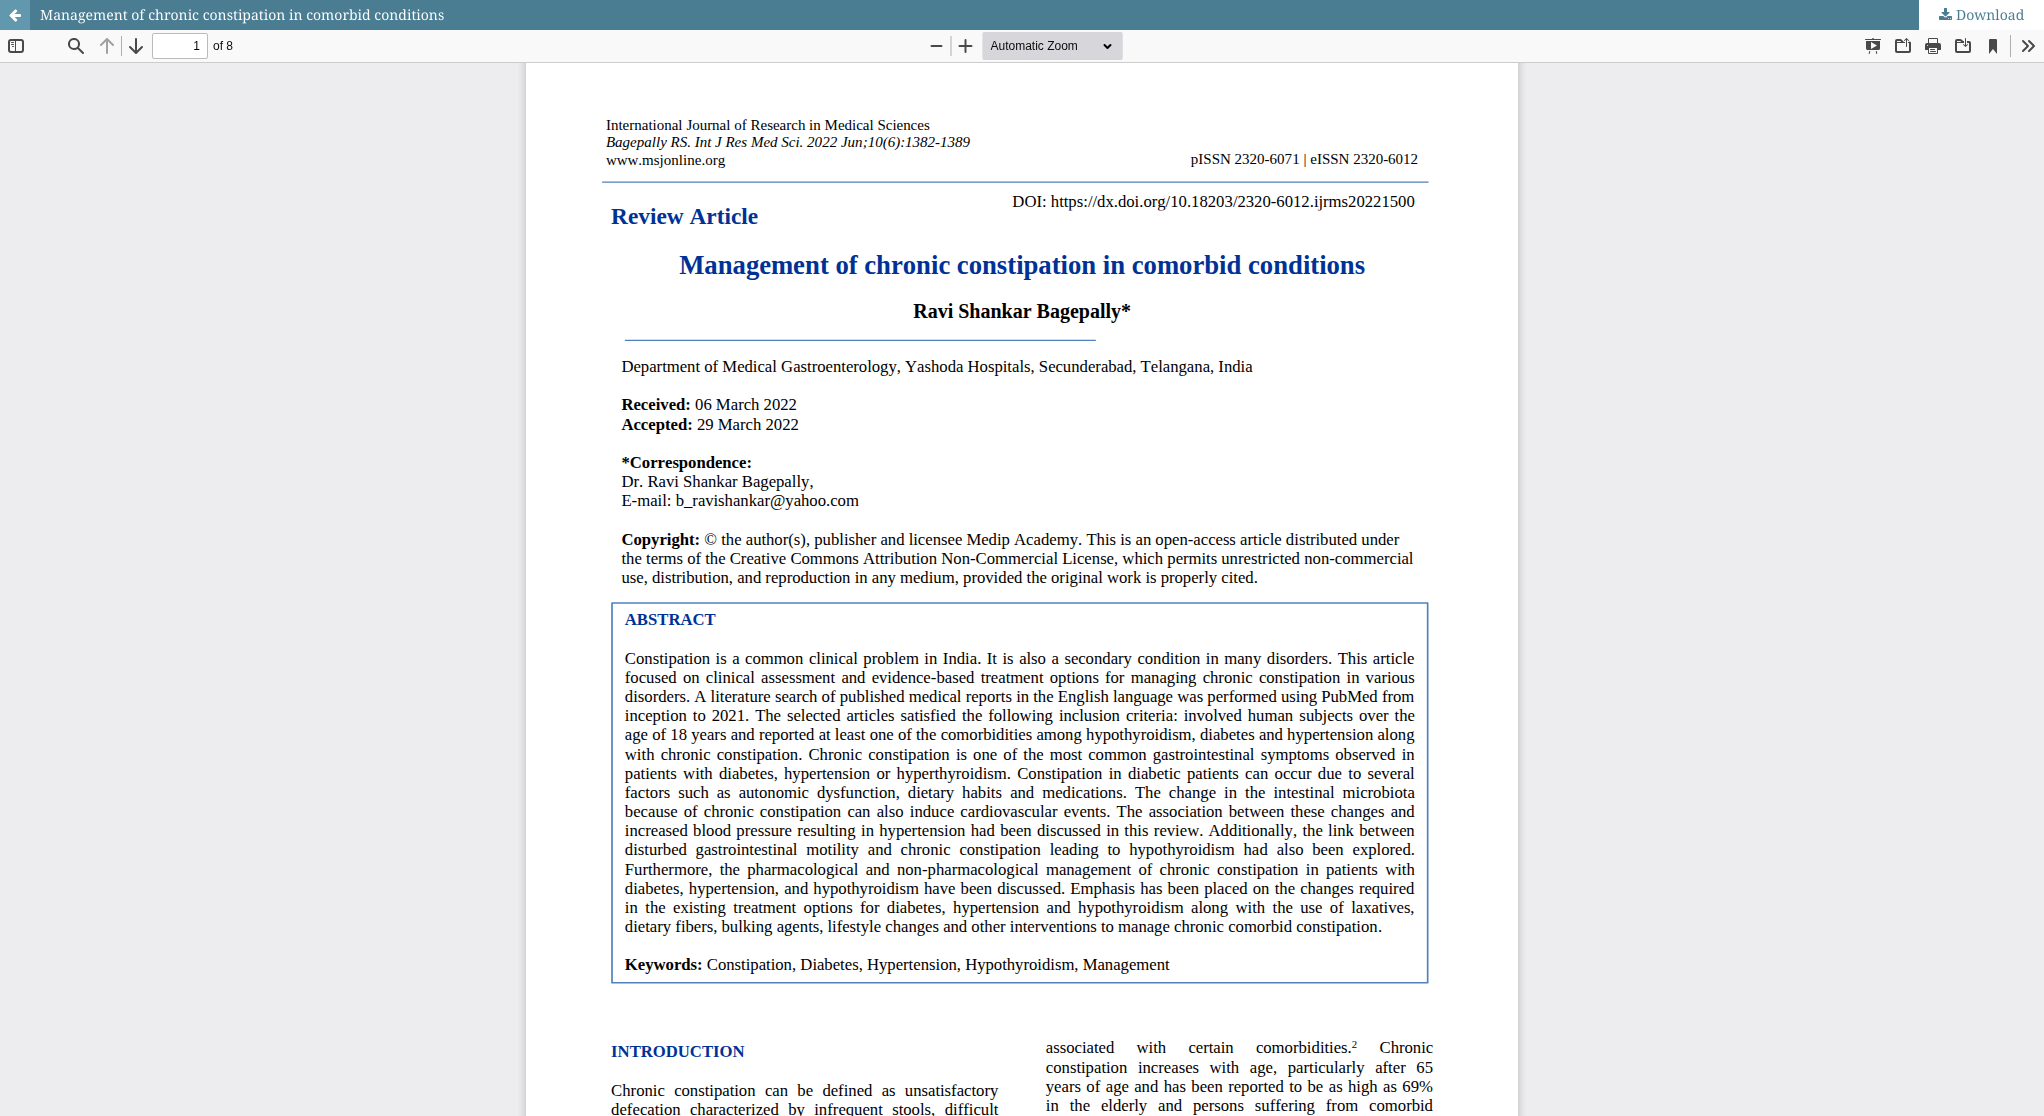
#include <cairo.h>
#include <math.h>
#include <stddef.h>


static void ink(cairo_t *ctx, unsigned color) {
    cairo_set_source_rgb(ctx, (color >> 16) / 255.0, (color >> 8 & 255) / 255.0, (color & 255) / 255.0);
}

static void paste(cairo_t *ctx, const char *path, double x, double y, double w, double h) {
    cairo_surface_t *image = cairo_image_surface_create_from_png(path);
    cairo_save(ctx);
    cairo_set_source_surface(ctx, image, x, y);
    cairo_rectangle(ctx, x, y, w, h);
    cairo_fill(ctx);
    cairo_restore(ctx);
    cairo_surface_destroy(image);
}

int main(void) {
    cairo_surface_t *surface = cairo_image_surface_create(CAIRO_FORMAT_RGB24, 2044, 1116);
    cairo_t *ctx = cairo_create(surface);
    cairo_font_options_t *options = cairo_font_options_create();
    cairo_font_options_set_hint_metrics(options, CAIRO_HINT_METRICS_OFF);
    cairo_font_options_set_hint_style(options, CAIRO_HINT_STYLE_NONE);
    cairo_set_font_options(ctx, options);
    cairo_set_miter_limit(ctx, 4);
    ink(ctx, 0xFFFFFF);
    cairo_paint(ctx);
    ink(ctx, 0x4B7D92);
    cairo_rectangle(ctx, 30, 0, 1889, 30);
    cairo_fill(ctx);
    ink(ctx, 0x6298AE);
    cairo_rectangle(ctx, 0, 0, 30, 30);
    cairo_fill(ctx);
    paste(ctx, "media/1.png", 9, 9, 12, 13);
    cairo_select_font_face(ctx, "Noto Serif", CAIRO_FONT_SLANT_NORMAL, CAIRO_FONT_WEIGHT_NORMAL);
    cairo_set_font_size(ctx, 14);
    ink(ctx, 0xFFFFFF);
    cairo_move_to(ctx, 40, 20);
    cairo_show_text(ctx, "Management of chronic constipation in comorbid conditions");
    paste(ctx, "media/2.png", 1939, 8, 13, 12);
    ink(ctx, 0x4B7D92);
    cairo_move_to(ctx, 1956, 20);
    cairo_show_text(ctx, "Download");
    paste(ctx, "media/3.png", 0, 30, 2044, 1086);
    cairo_surface_write_to_png(surface, "image.png");
    cairo_font_options_destroy(options);
    cairo_destroy(ctx);
    cairo_surface_destroy(surface);
    return 0;
}
